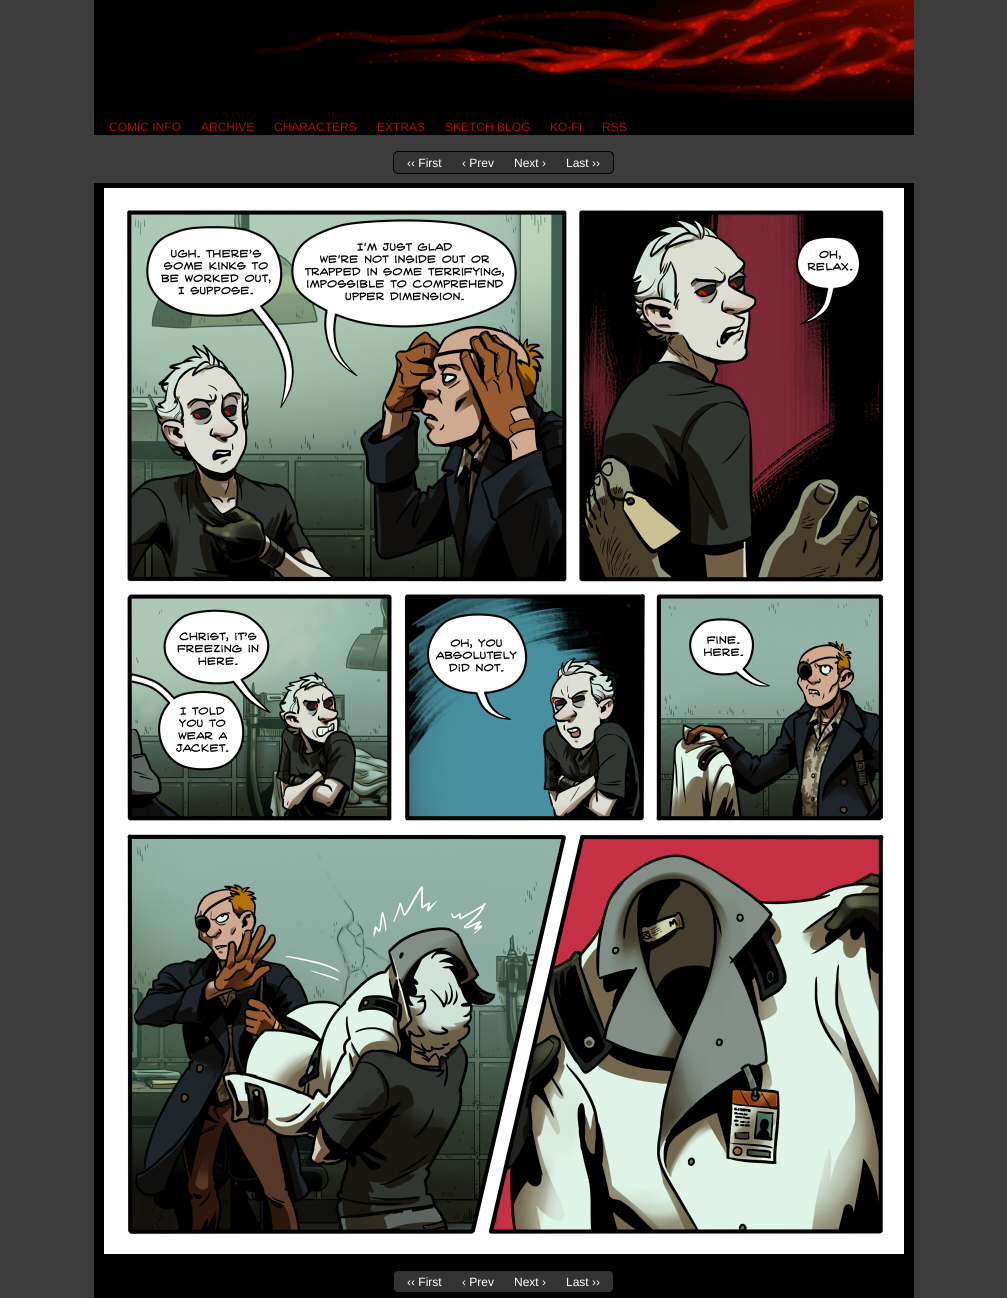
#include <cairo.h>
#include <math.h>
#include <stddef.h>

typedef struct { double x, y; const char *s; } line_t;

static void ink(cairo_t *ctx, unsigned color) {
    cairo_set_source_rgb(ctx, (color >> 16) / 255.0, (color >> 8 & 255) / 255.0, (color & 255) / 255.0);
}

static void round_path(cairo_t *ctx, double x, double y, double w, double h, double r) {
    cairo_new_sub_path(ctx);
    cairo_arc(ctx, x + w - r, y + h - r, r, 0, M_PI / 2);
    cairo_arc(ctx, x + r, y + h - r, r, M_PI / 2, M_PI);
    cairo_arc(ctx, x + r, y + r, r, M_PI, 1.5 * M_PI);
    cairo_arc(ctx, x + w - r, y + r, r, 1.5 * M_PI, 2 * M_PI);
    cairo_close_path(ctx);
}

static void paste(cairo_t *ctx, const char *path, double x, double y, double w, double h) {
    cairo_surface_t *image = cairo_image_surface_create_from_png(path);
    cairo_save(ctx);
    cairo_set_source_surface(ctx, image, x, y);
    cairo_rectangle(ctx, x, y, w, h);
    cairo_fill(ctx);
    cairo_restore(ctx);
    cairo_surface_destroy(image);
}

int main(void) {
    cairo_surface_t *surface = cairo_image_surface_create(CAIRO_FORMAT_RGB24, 1007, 1298);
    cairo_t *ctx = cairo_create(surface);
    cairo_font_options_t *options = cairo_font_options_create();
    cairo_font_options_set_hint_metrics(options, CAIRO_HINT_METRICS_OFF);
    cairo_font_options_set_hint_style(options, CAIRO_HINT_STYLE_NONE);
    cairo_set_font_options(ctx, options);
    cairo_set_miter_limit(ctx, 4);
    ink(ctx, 0x3C3C3C);
    cairo_paint(ctx);
    ink(ctx, 0x000000);
    cairo_rectangle(ctx, 94, 0, 820, 135);
    cairo_fill(ctx);
    paste(ctx, "media/1.png", 252, 0, 662, 100);
    cairo_select_font_face(ctx, "Liberation Sans", CAIRO_FONT_SLANT_NORMAL, CAIRO_FONT_WEIGHT_NORMAL);
    cairo_set_font_size(ctx, 12);
    ink(ctx, 0xB00B00);
    {
        static const line_t items[] = {
            {109, 131, "COMIC INFO"},
            {201, 131, "ARCHIVE"},
            {274, 131, "CHARACTERS"},
            {377, 131, "EXTRAS"},
            {445, 131, "SKETCH BLOG"},
            {550, 131, "KO-FI"},
            {602, 131, "RSS"},
        };
        for (size_t i = 0; i < sizeof items / sizeof *items; i++) {
            cairo_move_to(ctx, items[i].x, items[i].y);
            cairo_show_text(ctx, items[i].s);
        }
    }
    ink(ctx, 0x333333);
    round_path(ctx, 393.5, 151.5, 220, 22, 4.5);
    cairo_fill_preserve(ctx);
    ink(ctx, 0x000000);
    cairo_set_line_width(ctx, 1);
    cairo_stroke(ctx);
    ink(ctx, 0xFFFFFF);
    {
        static const line_t items[] = {
            {407, 167, "‹‹ First"},
            {462, 167, "‹ Prev"},
            {514, 167, "Next ›"},
            {566, 167, "Last ››"},
        };
        for (size_t i = 0; i < sizeof items / sizeof *items; i++) {
            cairo_move_to(ctx, items[i].x, items[i].y);
            cairo_show_text(ctx, items[i].s);
        }
    }
    ink(ctx, 0x000000);
    cairo_rectangle(ctx, 94, 183, 820, 1115);
    cairo_fill(ctx);
    paste(ctx, "media/2.png", 104, 188, 800, 1066);
    ink(ctx, 0x333333);
    round_path(ctx, 393.5, 1270.5, 220, 22, 4.5);
    cairo_fill_preserve(ctx);
    ink(ctx, 0x000000);
    cairo_stroke(ctx);
    ink(ctx, 0xFFFFFF);
    {
        static const line_t items[] = {
            {407, 1286, "‹‹ First"},
            {462, 1286, "‹ Prev"},
            {514, 1286, "Next ›"},
            {566, 1286, "Last ››"},
        };
        for (size_t i = 0; i < sizeof items / sizeof *items; i++) {
            cairo_move_to(ctx, items[i].x, items[i].y);
            cairo_show_text(ctx, items[i].s);
        }
    }
    cairo_surface_write_to_png(surface, "image.png");
    cairo_font_options_destroy(options);
    cairo_destroy(ctx);
    cairo_surface_destroy(surface);
    return 0;
}
